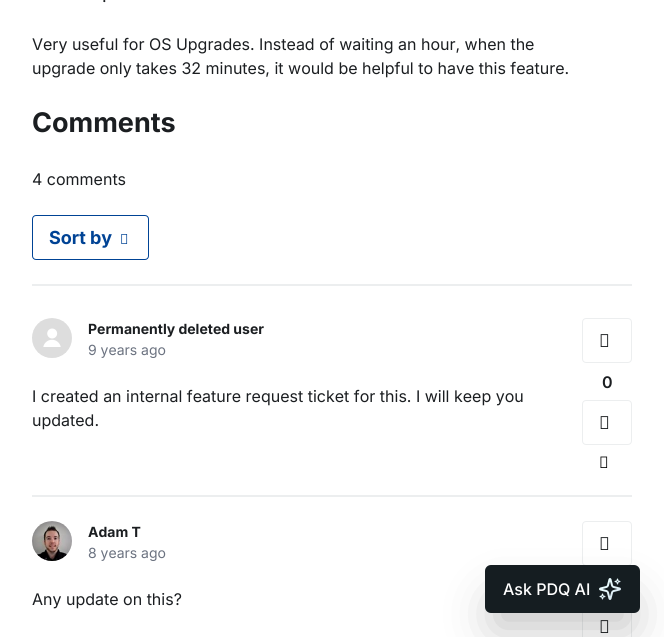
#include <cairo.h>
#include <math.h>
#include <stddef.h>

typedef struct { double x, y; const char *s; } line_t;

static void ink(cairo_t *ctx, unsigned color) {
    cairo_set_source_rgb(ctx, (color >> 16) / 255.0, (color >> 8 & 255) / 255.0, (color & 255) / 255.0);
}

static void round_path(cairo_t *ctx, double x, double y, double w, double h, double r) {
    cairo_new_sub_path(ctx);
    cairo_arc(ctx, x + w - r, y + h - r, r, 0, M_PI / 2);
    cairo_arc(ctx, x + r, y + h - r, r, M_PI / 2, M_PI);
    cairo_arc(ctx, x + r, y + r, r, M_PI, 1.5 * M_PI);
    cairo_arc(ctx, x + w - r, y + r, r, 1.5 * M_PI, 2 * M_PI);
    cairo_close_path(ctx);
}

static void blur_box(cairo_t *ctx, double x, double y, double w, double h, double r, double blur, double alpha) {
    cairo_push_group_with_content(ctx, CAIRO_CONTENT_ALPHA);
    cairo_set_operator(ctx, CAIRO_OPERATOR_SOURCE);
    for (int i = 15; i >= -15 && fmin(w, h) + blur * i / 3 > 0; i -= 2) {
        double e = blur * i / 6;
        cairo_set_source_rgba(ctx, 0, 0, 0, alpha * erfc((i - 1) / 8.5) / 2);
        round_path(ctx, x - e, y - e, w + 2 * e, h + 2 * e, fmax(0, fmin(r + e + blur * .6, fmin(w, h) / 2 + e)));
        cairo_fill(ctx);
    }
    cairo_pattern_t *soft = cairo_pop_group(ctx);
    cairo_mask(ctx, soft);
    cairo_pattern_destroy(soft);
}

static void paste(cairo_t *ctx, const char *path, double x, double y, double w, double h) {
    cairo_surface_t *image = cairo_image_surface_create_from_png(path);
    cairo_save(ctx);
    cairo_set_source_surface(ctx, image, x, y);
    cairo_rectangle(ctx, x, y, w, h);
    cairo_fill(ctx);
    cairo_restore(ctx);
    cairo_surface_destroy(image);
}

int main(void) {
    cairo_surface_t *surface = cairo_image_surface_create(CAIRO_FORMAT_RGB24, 664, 637);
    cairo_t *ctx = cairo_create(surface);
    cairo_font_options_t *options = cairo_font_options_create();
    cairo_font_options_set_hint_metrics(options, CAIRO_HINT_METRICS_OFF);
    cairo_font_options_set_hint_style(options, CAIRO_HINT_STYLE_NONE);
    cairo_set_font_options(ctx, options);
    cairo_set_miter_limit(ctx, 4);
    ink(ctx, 0xFFFFFF);
    cairo_paint(ctx);
    cairo_select_font_face(ctx, "Inter", CAIRO_FONT_SLANT_NORMAL, CAIRO_FONT_WEIGHT_NORMAL);
    cairo_set_font_size(ctx, 16);
    ink(ctx, 0x1B1E21);
    {
        static const line_t items[] = {
            {102, 2, "."},
            {32, 50, "Very useful for OS Upgrades. Instead of waiting an hour, when the"},
            {32, 74, "upgrade only takes 32 minutes, it would be helpful to have this feature."},
        };
        for (size_t i = 0; i < sizeof items / sizeof *items; i++) {
            cairo_move_to(ctx, items[i].x, items[i].y);
            cairo_show_text(ctx, items[i].s);
        }
    }
    cairo_select_font_face(ctx, "Inter", CAIRO_FONT_SLANT_NORMAL, CAIRO_FONT_WEIGHT_BOLD);
    cairo_set_font_size(ctx, 27);
    cairo_move_to(ctx, 32, 132);
    cairo_show_text(ctx, "Comments");
    ink(ctx, 0xECEEEF);
    cairo_rectangle(ctx, 32, 284, 600, 2);
    cairo_fill(ctx);
    cairo_select_font_face(ctx, "Inter", CAIRO_FONT_SLANT_NORMAL, CAIRO_FONT_WEIGHT_NORMAL);
    cairo_set_font_size(ctx, 16);
    ink(ctx, 0x1B1E21);
    cairo_move_to(ctx, 32, 185);
    cairo_show_text(ctx, "4 comments");
    round_path(ctx, 32.5, 215.5, 116, 44, 3.5);
    ink(ctx, 0x004395);
    cairo_set_line_width(ctx, 1);
    cairo_stroke(ctx);
    cairo_select_font_face(ctx, "Inter", CAIRO_FONT_SLANT_NORMAL, CAIRO_FONT_WEIGHT_BOLD);
    cairo_set_font_size(ctx, 18);
    cairo_move_to(ctx, 49, 244);
    cairo_show_text(ctx, "Sort by");
    paste(ctx, "media/1.png", 121, 234, 7, 10);
    ink(ctx, 0xECEEEF);
    cairo_rectangle(ctx, 32, 495, 600, 2);
    cairo_fill(ctx);
    paste(ctx, "media/2.png", 32, 318, 40, 40);
    cairo_set_font_size(ctx, 14);
    ink(ctx, 0x1B1E21);
    cairo_move_to(ctx, 88, 334);
    cairo_show_text(ctx, "Permanently deleted user");
    cairo_select_font_face(ctx, "Inter", CAIRO_FONT_SLANT_NORMAL, CAIRO_FONT_WEIGHT_NORMAL);
    ink(ctx, 0x6B7280);
    cairo_move_to(ctx, 88, 355);
    cairo_show_text(ctx, "9 years ago");
    cairo_set_font_size(ctx, 16);
    ink(ctx, 0x1B1E21);
    cairo_move_to(ctx, 32, 402);
    cairo_show_text(ctx, "I created an internal feature request ticket for this. I will keep you");
    cairo_move_to(ctx, 32, 426);
    cairo_show_text(ctx, "updated.");
    round_path(ctx, 582.5, 318.5, 49, 44, 3.5);
    ink(ctx, 0xECEEEF);
    cairo_stroke(ctx);
    paste(ctx, "media/3.png", 600, 334, 9, 13);
    cairo_select_font_face(ctx, "Inter SemiBold", CAIRO_FONT_SLANT_NORMAL, CAIRO_FONT_WEIGHT_NORMAL);
    ink(ctx, 0x1B1E21);
    cairo_move_to(ctx, 602, 388);
    cairo_show_text(ctx, "0");
    round_path(ctx, 582.5, 400.5, 49, 44, 3.5);
    ink(ctx, 0xECEEEF);
    cairo_stroke(ctx);
    paste(ctx, "media/3.png", 600, 416, 9, 13);
    paste(ctx, "media/4.png", 600, 456, 8, 12);
    paste(ctx, "media/5.png", 32, 521, 40, 40);
    cairo_select_font_face(ctx, "Inter", CAIRO_FONT_SLANT_NORMAL, CAIRO_FONT_WEIGHT_BOLD);
    cairo_set_font_size(ctx, 14);
    ink(ctx, 0x1B1E21);
    cairo_move_to(ctx, 88, 537);
    cairo_show_text(ctx, "Adam T");
    cairo_select_font_face(ctx, "Inter", CAIRO_FONT_SLANT_NORMAL, CAIRO_FONT_WEIGHT_NORMAL);
    ink(ctx, 0x6B7280);
    cairo_move_to(ctx, 88, 558);
    cairo_show_text(ctx, "8 years ago");
    cairo_set_font_size(ctx, 16);
    ink(ctx, 0x1B1E21);
    cairo_move_to(ctx, 32, 605);
    cairo_show_text(ctx, "Any update on this?");
    round_path(ctx, 582.5, 521.5, 49, 44, 3.5);
    ink(ctx, 0xECEEEF);
    cairo_stroke(ctx);
    paste(ctx, "media/3.png", 600, 537, 9, 13);
    cairo_rectangle(ctx, 582.5, 604.5, 49, 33);
    cairo_stroke(ctx);
    paste(ctx, "media/3.png", 600, 620, 9, 13);
    ink(ctx, 0x000000);
    blur_box(ctx, 497, 602, 131, 24, 0, 25, 0.25);
    ink(ctx, 0x151D21);
    round_path(ctx, 485, 565, 155, 48, 6);
    cairo_fill(ctx);
    cairo_select_font_face(ctx, "Inter Medium", CAIRO_FONT_SLANT_NORMAL, CAIRO_FONT_WEIGHT_NORMAL);
    ink(ctx, 0xFFFFFF);
    cairo_move_to(ctx, 503, 595);
    cairo_show_text(ctx, "Ask PDQ AI");
    paste(ctx, "media/6.png", 599, 578, 22, 22);
    cairo_surface_write_to_png(surface, "image.png");
    cairo_font_options_destroy(options);
    cairo_destroy(ctx);
    cairo_surface_destroy(surface);
    return 0;
}
